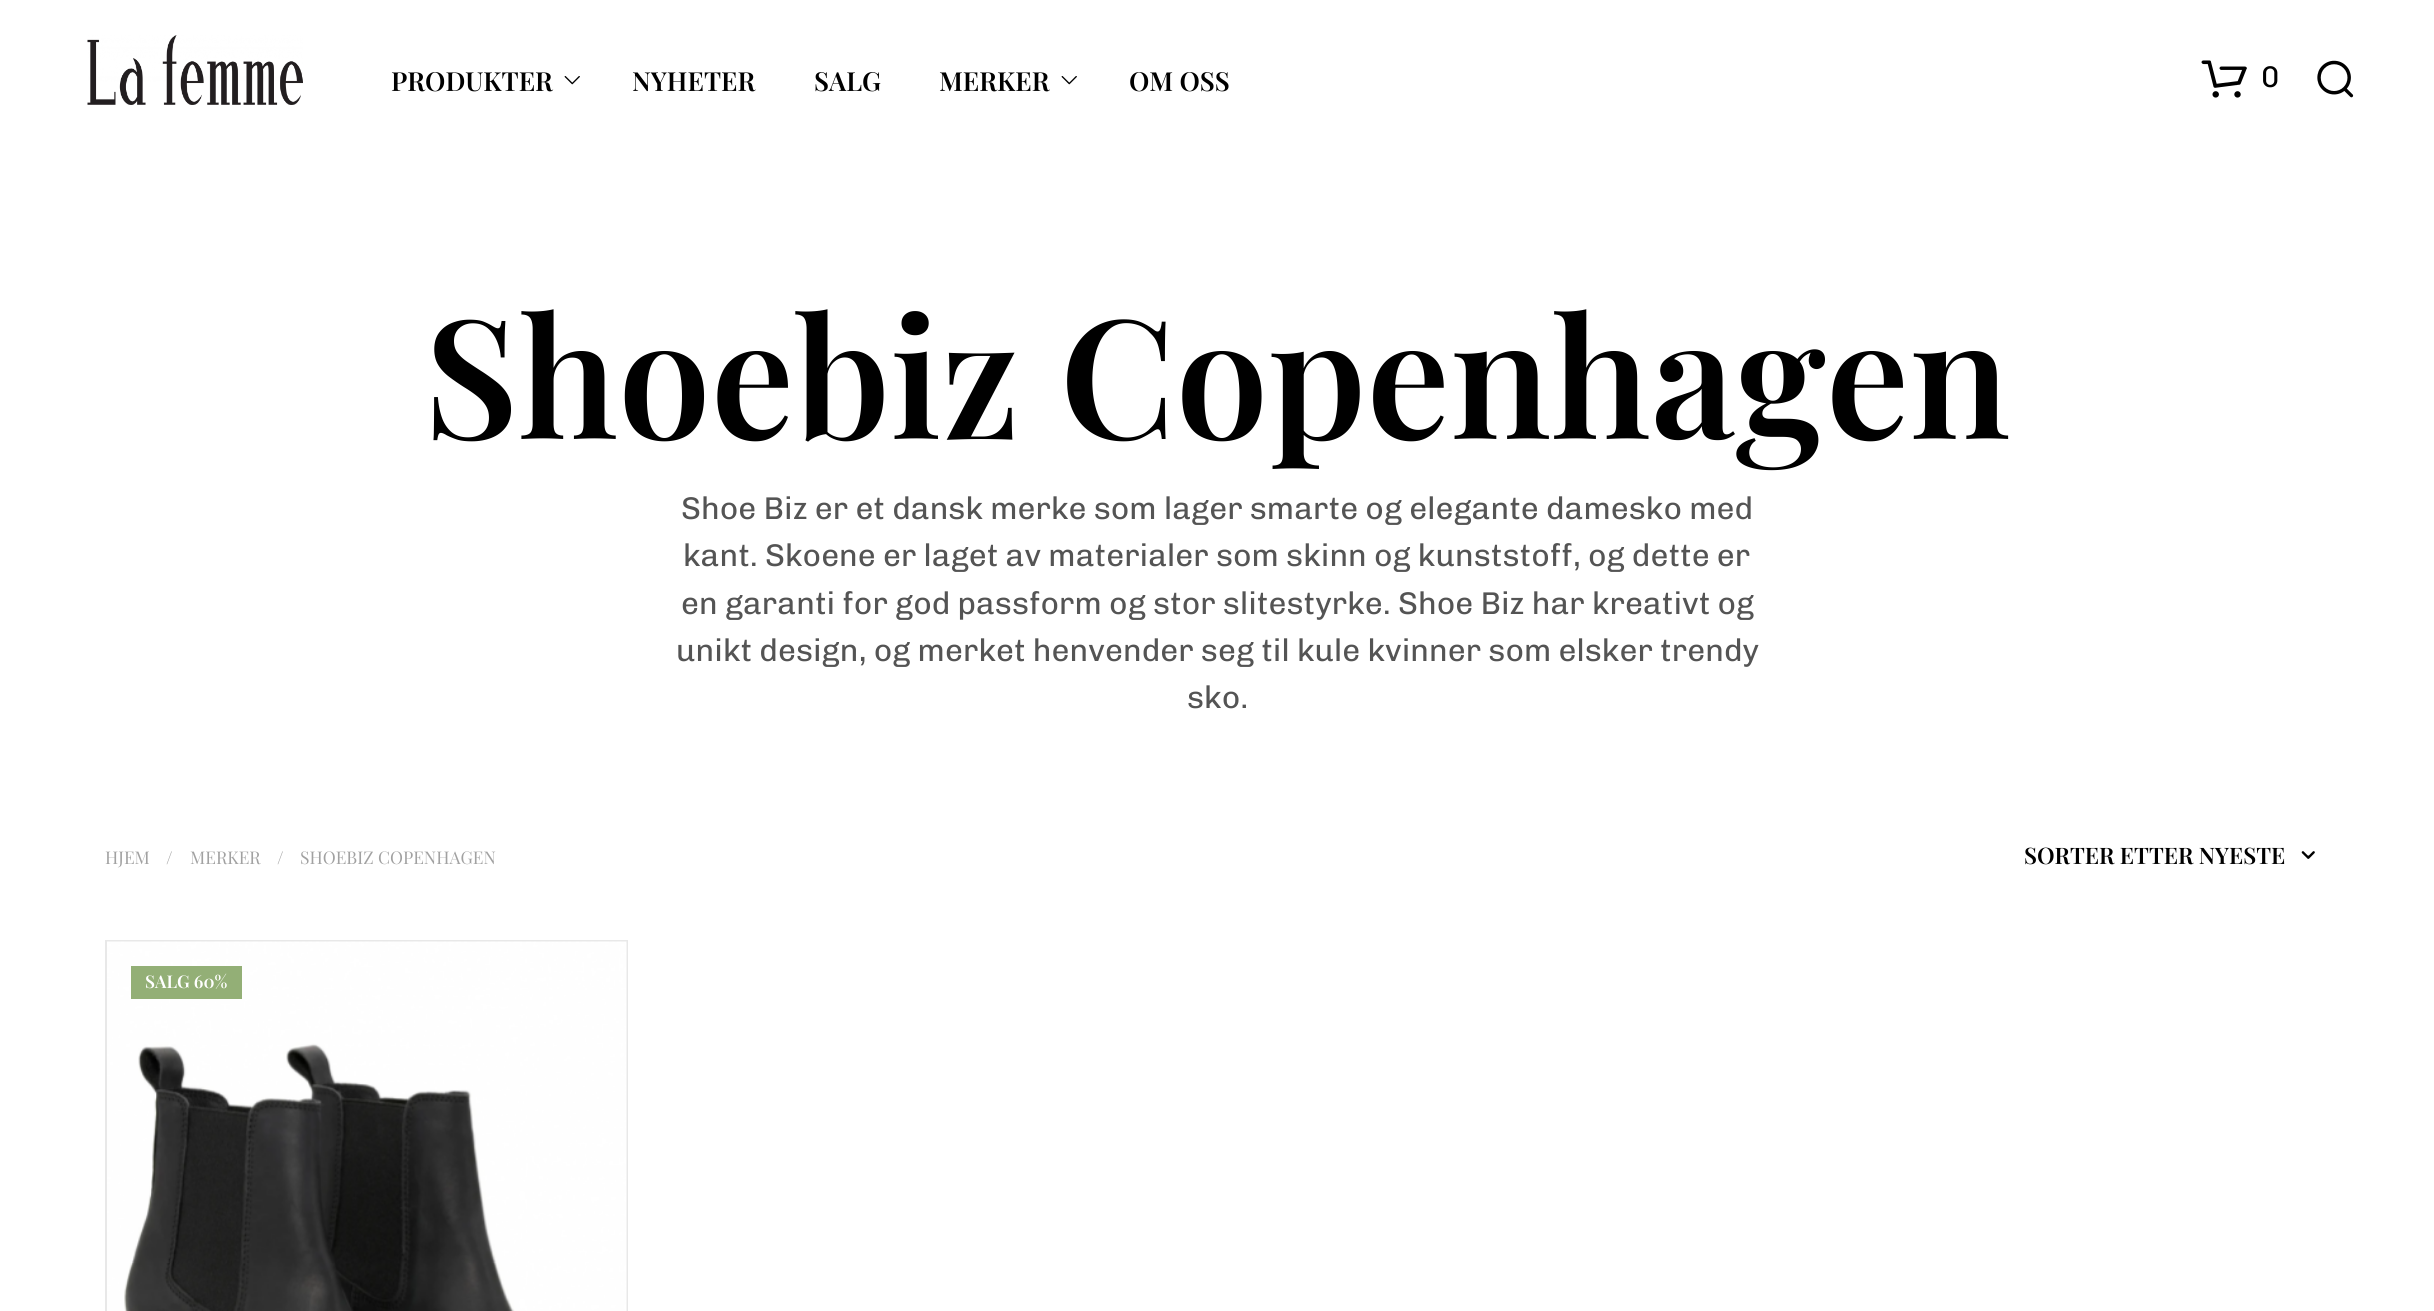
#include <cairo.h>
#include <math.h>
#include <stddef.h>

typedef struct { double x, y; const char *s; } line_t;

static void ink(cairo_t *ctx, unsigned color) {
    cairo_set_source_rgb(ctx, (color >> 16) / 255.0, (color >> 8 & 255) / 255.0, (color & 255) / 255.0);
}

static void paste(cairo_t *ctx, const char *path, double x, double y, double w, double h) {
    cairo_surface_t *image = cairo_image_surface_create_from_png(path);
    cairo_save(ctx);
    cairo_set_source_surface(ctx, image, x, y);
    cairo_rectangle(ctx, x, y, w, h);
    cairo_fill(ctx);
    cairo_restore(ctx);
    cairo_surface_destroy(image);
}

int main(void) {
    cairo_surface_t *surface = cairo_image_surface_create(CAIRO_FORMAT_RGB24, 2434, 1311);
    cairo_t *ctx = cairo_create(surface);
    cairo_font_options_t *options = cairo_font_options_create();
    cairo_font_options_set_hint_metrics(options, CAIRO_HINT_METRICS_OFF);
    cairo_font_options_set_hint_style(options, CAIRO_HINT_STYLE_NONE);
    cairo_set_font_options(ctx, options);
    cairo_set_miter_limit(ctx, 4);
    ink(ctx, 0xFFFFFF);
    cairo_paint(ctx);
    paste(ctx, "media/1.png", 87, 35, 216, 70);
    cairo_select_font_face(ctx, "Playfair Display SemiBold", CAIRO_FONT_SLANT_NORMAL, CAIRO_FONT_WEIGHT_NORMAL);
    cairo_set_font_size(ctx, 26.25);
    ink(ctx, 0x000000);
    cairo_move_to(ctx, 391, 91);
    cairo_show_text(ctx, "PRODUKTER");
    paste(ctx, "media/2.png", 564, 76, 16, 9);
    {
        static const line_t items[] = {
            {632, 91, "NYHETER"},
            {814, 91, "SALG"},
            {939, 91, "MERKER"},
        };
        for (size_t i = 0; i < sizeof items / sizeof *items; i++) {
            cairo_move_to(ctx, items[i].x, items[i].y);
            cairo_show_text(ctx, items[i].s);
        }
    }
    paste(ctx, "media/2.png", 1061, 76, 16, 9);
    cairo_move_to(ctx, 1129, 91);
    cairo_show_text(ctx, "OM OSS");
    paste(ctx, "media/3.png", 2201, 60, 46, 38);
    cairo_select_font_face(ctx, "Chivo", CAIRO_FONT_SLANT_NORMAL, CAIRO_FONT_WEIGHT_NORMAL);
    cairo_set_font_size(ctx, 30);
    cairo_move_to(ctx, 2261, 87);
    cairo_show_text(ctx, "0");
    paste(ctx, "media/4.png", 2317, 60, 37, 38);
    cairo_select_font_face(ctx, "Playfair Display SemiBold", CAIRO_FONT_SLANT_NORMAL, CAIRO_FONT_WEIGHT_NORMAL);
    cairo_set_font_size(ctx, 165.75);
    cairo_move_to(ctx, 424, 439);
    cairo_show_text(ctx, "Shoebiz Copenhagen");
    cairo_select_font_face(ctx, "Chivo", CAIRO_FONT_SLANT_NORMAL, CAIRO_FONT_WEIGHT_NORMAL);
    cairo_set_font_size(ctx, 31.5);
    ink(ctx, 0x545454);
    {
        static const line_t items[] = {
            {681, 519, "Shoe Biz er et dansk merke som lager smarte og elegante damesko med"},
            {683, 566, "kant. Skoene er laget av materialer som skinn og kunststoff, og dette er"},
            {681, 614, "en garanti for god passform og stor slitestyrke. Shoe Biz har kreativt og"},
            {676, 661, "unikt design, og merket henvender seg til kule kvinner som elsker trendy"},
            {1187, 708, "sko."},
        };
        for (size_t i = 0; i < sizeof items / sizeof *items; i++) {
            cairo_move_to(ctx, items[i].x, items[i].y);
            cairo_show_text(ctx, items[i].s);
        }
    }
    cairo_select_font_face(ctx, "Playfair Display", CAIRO_FONT_SLANT_NORMAL, CAIRO_FONT_WEIGHT_NORMAL);
    cairo_set_font_size(ctx, 17.5);
    ink(ctx, 0xA1A1A1);
    {
        static const line_t items[] = {
            {105, 864, "HJEM"},
            {166, 864, "/"},
            {190, 864, "MERKER"},
            {277, 864, "/"},
            {300, 864, "SHOEBIZ COPENHAGEN"},
        };
        for (size_t i = 0; i < sizeof items / sizeof *items; i++) {
            cairo_move_to(ctx, items[i].x, items[i].y);
            cairo_show_text(ctx, items[i].s);
        }
    }
    paste(ctx, "media/5.png", 2301, 851, 14, 8);
    cairo_select_font_face(ctx, "Playfair Display SemiBold", CAIRO_FONT_SLANT_NORMAL, CAIRO_FONT_WEIGHT_NORMAL);
    cairo_set_font_size(ctx, 22.75);
    ink(ctx, 0x000000);
    cairo_move_to(ctx, 2024, 864);
    cairo_show_text(ctx, "SORTER ETTER NYESTE");
    cairo_rectangle(ctx, 106, 941, 521, 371);
    ink(ctx, 0xE8E8E8);
    cairo_stroke(ctx);
    paste(ctx, "media/6.png", 107, 941, 520, 370);
    ink(ctx, 0x93AF76);
    cairo_rectangle(ctx, 131, 966, 111, 33);
    cairo_fill(ctx);
    cairo_set_font_size(ctx, 17.5);
    ink(ctx, 0xFFFFFF);
    cairo_move_to(ctx, 145, 988);
    cairo_show_text(ctx, "SALG 60%");
    cairo_surface_write_to_png(surface, "image.png");
    cairo_font_options_destroy(options);
    cairo_destroy(ctx);
    cairo_surface_destroy(surface);
    return 0;
}
